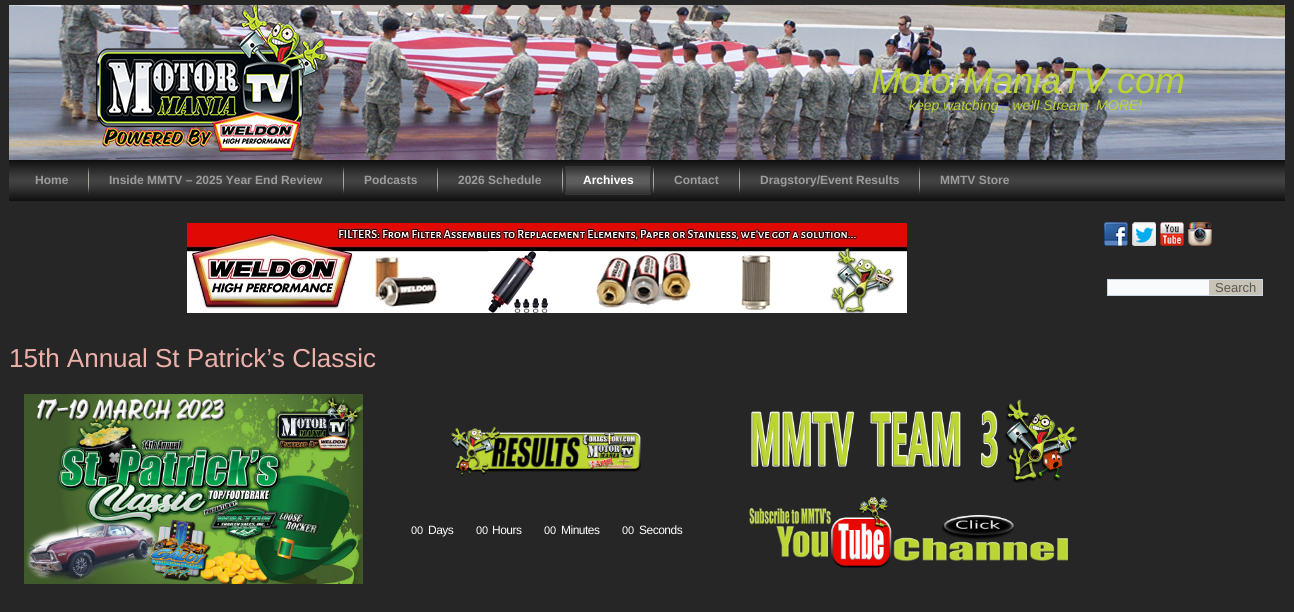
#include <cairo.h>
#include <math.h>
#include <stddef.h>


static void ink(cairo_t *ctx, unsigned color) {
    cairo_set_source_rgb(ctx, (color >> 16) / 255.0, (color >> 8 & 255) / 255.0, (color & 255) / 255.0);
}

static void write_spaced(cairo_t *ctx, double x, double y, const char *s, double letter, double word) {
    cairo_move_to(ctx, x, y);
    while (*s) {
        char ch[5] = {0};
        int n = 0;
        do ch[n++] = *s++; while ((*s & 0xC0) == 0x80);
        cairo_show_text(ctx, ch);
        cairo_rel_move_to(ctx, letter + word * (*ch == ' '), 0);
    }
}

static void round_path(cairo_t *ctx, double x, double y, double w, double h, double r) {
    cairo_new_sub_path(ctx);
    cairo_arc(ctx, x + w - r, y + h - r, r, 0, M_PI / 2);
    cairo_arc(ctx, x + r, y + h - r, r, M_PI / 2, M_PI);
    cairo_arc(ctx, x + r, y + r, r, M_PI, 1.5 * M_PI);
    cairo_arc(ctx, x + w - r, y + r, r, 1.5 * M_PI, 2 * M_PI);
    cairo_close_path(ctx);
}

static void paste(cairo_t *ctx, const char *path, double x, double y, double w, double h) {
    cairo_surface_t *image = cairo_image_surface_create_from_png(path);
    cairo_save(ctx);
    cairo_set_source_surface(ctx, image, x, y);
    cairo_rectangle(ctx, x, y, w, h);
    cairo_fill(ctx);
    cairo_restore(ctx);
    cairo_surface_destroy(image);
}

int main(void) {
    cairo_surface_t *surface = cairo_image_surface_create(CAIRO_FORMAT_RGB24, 1294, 612);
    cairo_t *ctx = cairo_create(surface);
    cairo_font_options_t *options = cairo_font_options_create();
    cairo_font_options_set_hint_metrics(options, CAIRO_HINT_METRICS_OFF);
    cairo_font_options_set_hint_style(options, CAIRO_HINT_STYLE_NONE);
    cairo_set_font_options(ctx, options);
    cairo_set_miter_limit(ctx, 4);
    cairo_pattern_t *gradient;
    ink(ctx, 0x262626);
    cairo_paint(ctx);
    paste(ctx, "media/1.png", 9, 5, 1276, 155);
    cairo_select_font_face(ctx, "Liberation Sans", CAIRO_FONT_SLANT_ITALIC, CAIRO_FONT_WEIGHT_NORMAL);
    cairo_set_font_size(ctx, 36);
    ink(ctx, 0xBBD333);
    cairo_move_to(ctx, 871, 93);
    cairo_show_text(ctx, "MotorManiaTV.com");
    cairo_set_font_size(ctx, 14);
    cairo_move_to(ctx, 909, 110);
    cairo_show_text(ctx, "keep watching…we'll Stream  MORE!");
    gradient = cairo_pattern_create_linear(647, 160, 647, 201);
    cairo_pattern_add_color_stop_rgba(gradient, 0, 0.059, 0.059, 0.059, 1);
    cairo_pattern_add_color_stop_rgba(gradient, 0.4, 0.239, 0.239, 0.239, 1);
    cairo_pattern_add_color_stop_rgba(gradient, 0.5, 0.259, 0.259, 0.259, 1);
    cairo_pattern_add_color_stop_rgba(gradient, 0.6, 0.239, 0.239, 0.239, 1);
    cairo_pattern_add_color_stop_rgba(gradient, 1, 0.059, 0.059, 0.059, 1);
    cairo_set_source(ctx, gradient);
    cairo_pattern_destroy(gradient);
    cairo_rectangle(ctx, 9, 160, 1276, 41);
    cairo_fill(ctx);
    cairo_select_font_face(ctx, "Liberation Sans", CAIRO_FONT_SLANT_NORMAL, CAIRO_FONT_WEIGHT_BOLD);
    cairo_set_font_size(ctx, 12);
    ink(ctx, 0x9C9C9C);
    cairo_move_to(ctx, 35, 184);
    cairo_show_text(ctx, "Home");
    paste(ctx, "media/2.png", 88, 167, 1, 26);
    cairo_move_to(ctx, 109, 184);
    cairo_show_text(ctx, "Inside MMTV – 2025 Year End Review");
    paste(ctx, "media/2.png", 343, 167, 1, 26);
    cairo_move_to(ctx, 364, 184);
    cairo_show_text(ctx, "Podcasts");
    paste(ctx, "media/2.png", 437, 167, 1, 26);
    cairo_move_to(ctx, 458, 184);
    cairo_show_text(ctx, "2026 Schedule");
    paste(ctx, "media/2.png", 562, 167, 1, 26);
    gradient = cairo_pattern_create_linear(608, 166, 608, 195);
    cairo_pattern_add_color_stop_rgba(gradient, 0, 0.18, 0.18, 0.18, 1);
    cairo_pattern_add_color_stop_rgba(gradient, 0.4, 0.361, 0.361, 0.361, 1);
    cairo_pattern_add_color_stop_rgba(gradient, 0.5, 0.369, 0.369, 0.369, 1);
    cairo_pattern_add_color_stop_rgba(gradient, 0.6, 0.361, 0.361, 0.361, 1);
    cairo_pattern_add_color_stop_rgba(gradient, 1, 0.18, 0.18, 0.18, 1);
    cairo_set_source(ctx, gradient);
    cairo_pattern_destroy(gradient);
    round_path(ctx, 565.5, 166.5, 85, 28, 1.5);
    cairo_fill_preserve(ctx);
    ink(ctx, 0x363636);
    cairo_set_line_width(ctx, 1);
    cairo_stroke(ctx);
    ink(ctx, 0xFFFFFF);
    cairo_move_to(ctx, 583, 184);
    cairo_show_text(ctx, "Archives");
    paste(ctx, "media/2.png", 653, 167, 1, 26);
    ink(ctx, 0x9C9C9C);
    cairo_move_to(ctx, 674, 184);
    cairo_show_text(ctx, "Contact");
    paste(ctx, "media/2.png", 739, 167, 1, 26);
    cairo_move_to(ctx, 760, 184);
    cairo_show_text(ctx, "Dragstory/Event Results");
    paste(ctx, "media/2.png", 919, 167, 1, 26);
    cairo_move_to(ctx, 940, 184);
    cairo_show_text(ctx, "MMTV Store");
    paste(ctx, "media/3.png", 1104, 222, 24, 24);
    paste(ctx, "media/4.png", 1132, 222, 24, 24);
    paste(ctx, "media/5.png", 1160, 222, 24, 24);
    paste(ctx, "media/6.png", 1188, 222, 24, 24);
    ink(ctx, 0xF9FAFB);
    cairo_rectangle(ctx, 1108, 280, 101, 15);
    cairo_fill(ctx);
    cairo_rectangle(ctx, 1107.5, 279.5, 155, 16);
    ink(ctx, 0xCCD6E0);
    cairo_stroke(ctx);
    ink(ctx, 0xC7C3B8);
    cairo_rectangle(ctx, 1209, 280, 53, 15);
    cairo_fill(ctx);
    cairo_select_font_face(ctx, "Liberation Sans", CAIRO_FONT_SLANT_NORMAL, CAIRO_FONT_WEIGHT_NORMAL);
    cairo_set_font_size(ctx, 13);
    ink(ctx, 0x5E594A);
    cairo_move_to(ctx, 1215, 292);
    cairo_show_text(ctx, "Search");
    paste(ctx, "media/7.png", 187, 223, 720, 90);
    cairo_set_font_size(ctx, 26);
    ink(ctx, 0xEEB1AA);
    cairo_move_to(ctx, 9, 367);
    cairo_show_text(ctx, "15th Annual St Patrick’s Classic");
    paste(ctx, "media/8.png", 24, 394, 339, 190);
    paste(ctx, "media/9.png", 451, 426, 190, 50);
    cairo_set_font_size(ctx, 11);
    ink(ctx, 0xFFFFFF);
    cairo_move_to(ctx, 411, 534);
    cairo_show_text(ctx, "00");
    cairo_set_font_size(ctx, 12);
    write_spaced(ctx, 428, 534, "Days", -0.5, 0);
    cairo_set_font_size(ctx, 11);
    cairo_move_to(ctx, 476, 534);
    cairo_show_text(ctx, "00");
    cairo_set_font_size(ctx, 12);
    write_spaced(ctx, 492, 534, "Hours", -0.5, 0);
    cairo_set_font_size(ctx, 11);
    cairo_move_to(ctx, 544, 534);
    cairo_show_text(ctx, "00");
    cairo_set_font_size(ctx, 12);
    write_spaced(ctx, 561, 534, "Minutes", -0.5, 0);
    cairo_set_font_size(ctx, 11);
    cairo_move_to(ctx, 622, 534);
    cairo_show_text(ctx, "00");
    cairo_set_font_size(ctx, 12);
    write_spaced(ctx, 639, 534, "Seconds", -0.5, 0);
    paste(ctx, "media/10.png", 751, 399, 326, 84);
    paste(ctx, "media/11.png", 749, 496, 319, 72);
    cairo_surface_write_to_png(surface, "image.png");
    cairo_font_options_destroy(options);
    cairo_destroy(ctx);
    cairo_surface_destroy(surface);
    return 0;
}
